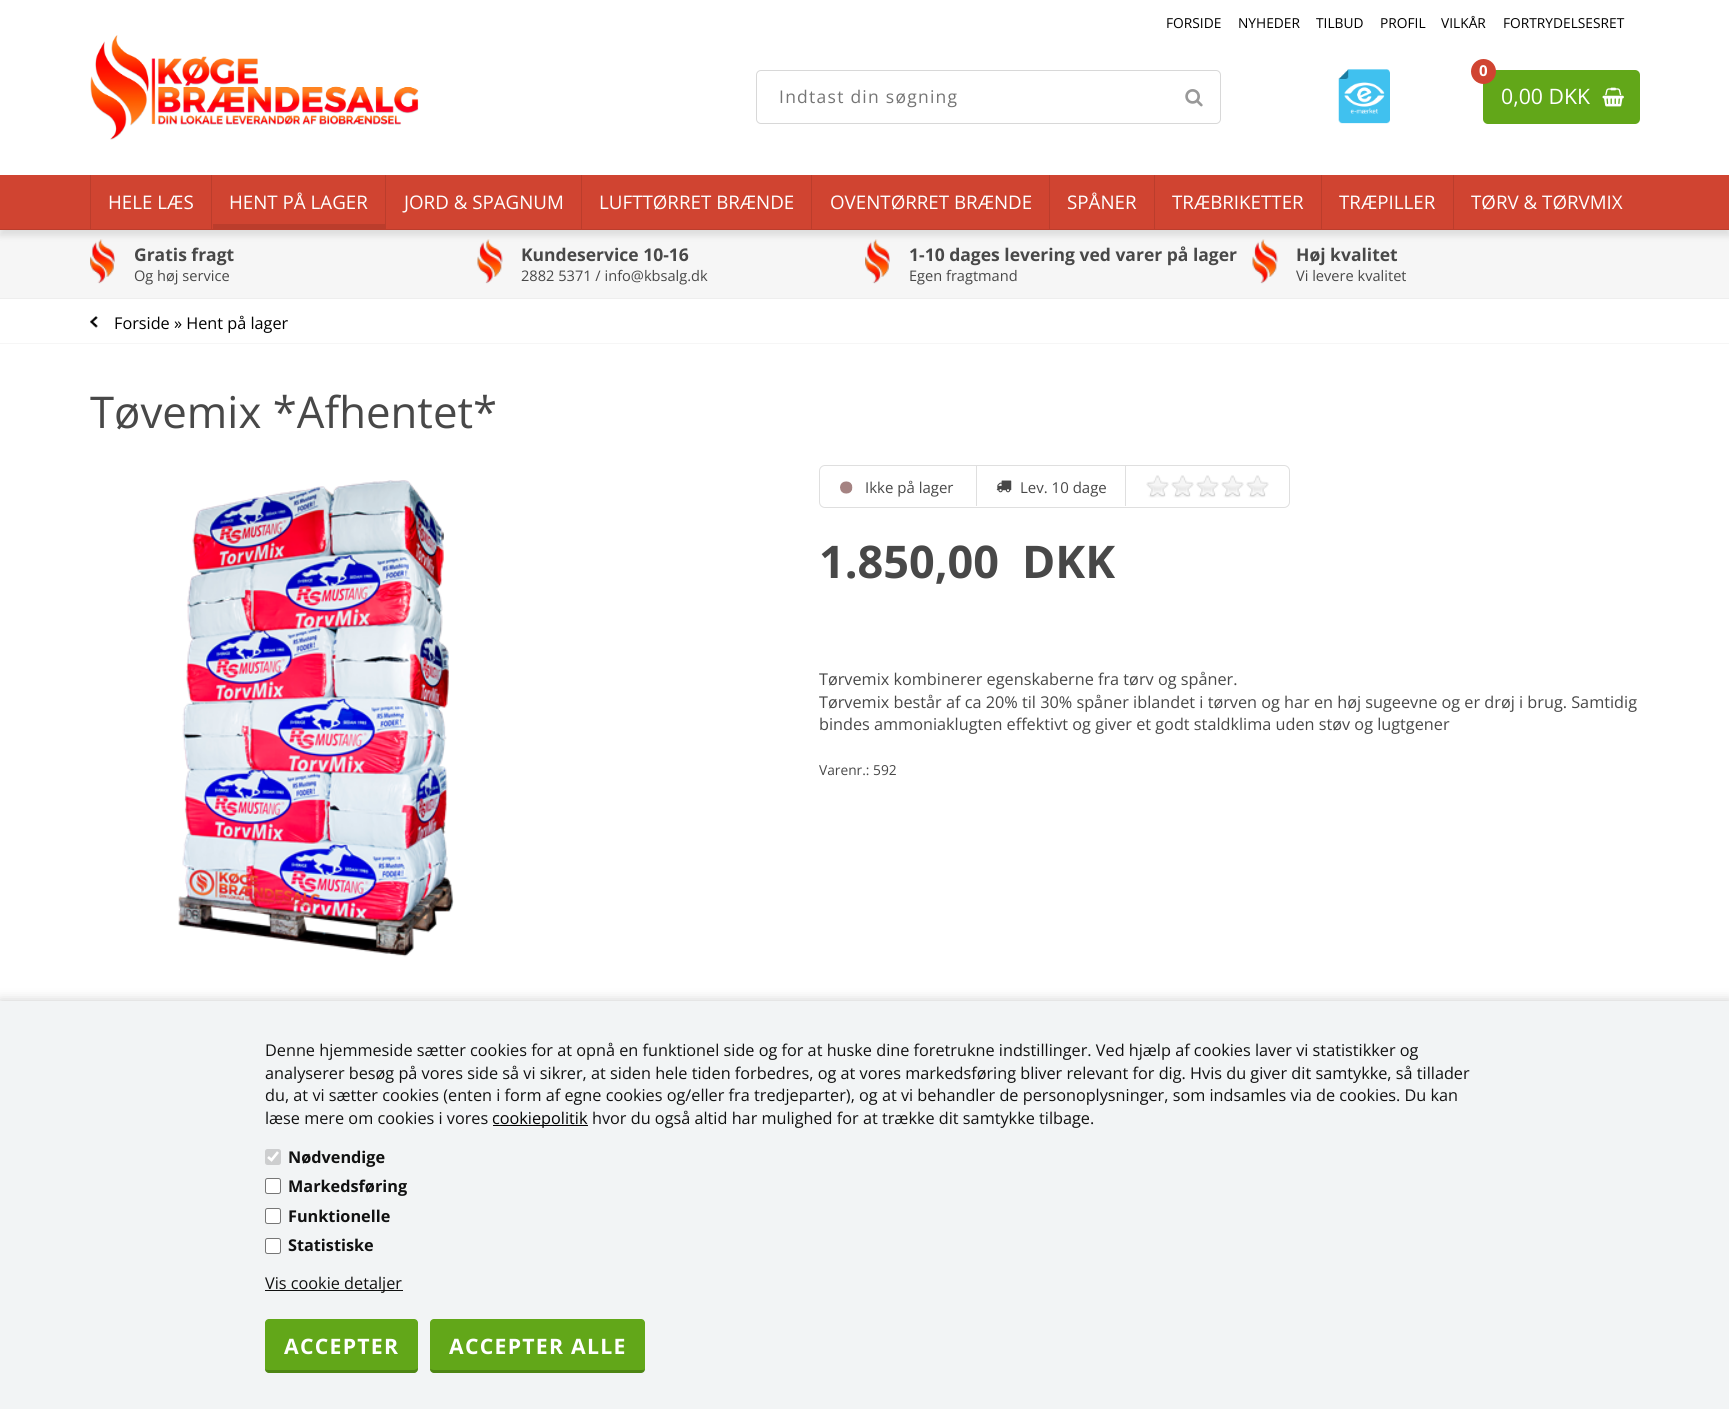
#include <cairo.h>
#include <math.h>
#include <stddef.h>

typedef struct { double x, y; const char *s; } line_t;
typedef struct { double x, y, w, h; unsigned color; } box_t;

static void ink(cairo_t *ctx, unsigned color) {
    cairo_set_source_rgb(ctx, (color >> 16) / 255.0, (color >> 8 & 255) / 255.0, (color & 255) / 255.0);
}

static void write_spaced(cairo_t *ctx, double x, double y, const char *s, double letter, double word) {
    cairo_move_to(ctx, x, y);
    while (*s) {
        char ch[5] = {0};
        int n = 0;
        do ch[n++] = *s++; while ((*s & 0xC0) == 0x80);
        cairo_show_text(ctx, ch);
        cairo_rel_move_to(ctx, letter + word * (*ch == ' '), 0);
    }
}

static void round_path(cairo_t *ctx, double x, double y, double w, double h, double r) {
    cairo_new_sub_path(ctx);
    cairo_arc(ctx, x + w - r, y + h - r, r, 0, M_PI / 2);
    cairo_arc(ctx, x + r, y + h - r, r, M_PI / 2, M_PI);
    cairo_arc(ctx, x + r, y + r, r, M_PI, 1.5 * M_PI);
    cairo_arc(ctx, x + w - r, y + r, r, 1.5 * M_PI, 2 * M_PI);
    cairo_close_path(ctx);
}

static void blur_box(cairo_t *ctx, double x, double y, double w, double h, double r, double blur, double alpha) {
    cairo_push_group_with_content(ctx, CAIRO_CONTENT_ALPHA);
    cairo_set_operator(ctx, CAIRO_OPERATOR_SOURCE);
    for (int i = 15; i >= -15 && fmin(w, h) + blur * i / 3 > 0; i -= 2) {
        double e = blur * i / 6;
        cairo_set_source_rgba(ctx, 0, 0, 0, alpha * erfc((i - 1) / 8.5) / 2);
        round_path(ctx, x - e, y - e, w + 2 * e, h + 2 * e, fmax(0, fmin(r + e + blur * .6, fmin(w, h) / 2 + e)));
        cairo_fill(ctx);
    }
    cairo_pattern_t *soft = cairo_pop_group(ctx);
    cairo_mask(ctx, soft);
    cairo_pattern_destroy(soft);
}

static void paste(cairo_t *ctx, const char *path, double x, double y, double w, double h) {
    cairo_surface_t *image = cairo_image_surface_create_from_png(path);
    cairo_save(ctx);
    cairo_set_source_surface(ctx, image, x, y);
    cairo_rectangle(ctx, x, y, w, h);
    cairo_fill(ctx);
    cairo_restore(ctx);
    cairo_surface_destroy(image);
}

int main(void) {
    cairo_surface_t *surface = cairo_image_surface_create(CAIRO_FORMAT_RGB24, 1729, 1409);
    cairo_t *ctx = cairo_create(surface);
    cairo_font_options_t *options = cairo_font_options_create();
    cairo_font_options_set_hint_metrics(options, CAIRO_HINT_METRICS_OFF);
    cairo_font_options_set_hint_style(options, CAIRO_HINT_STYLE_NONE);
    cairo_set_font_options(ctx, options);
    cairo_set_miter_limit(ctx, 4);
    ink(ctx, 0xFFFFFF);
    cairo_paint(ctx);
    cairo_select_font_face(ctx, "Open Sans", CAIRO_FONT_SLANT_NORMAL, CAIRO_FONT_WEIGHT_NORMAL);
    cairo_set_font_size(ctx, 13.75);
    ink(ctx, 0x000000);
    {
        static const line_t items[] = {
            {1166, 28, "FORSIDE"},
            {1238, 28, "NYHEDER"},
            {1316, 28, "TILBUD"},
            {1380, 28, "PROFIL"},
            {1441, 28, "VILKÅR"},
            {1503, 28, "FORTRYDELSESRET"},
        };
        for (size_t i = 0; i < sizeof items / sizeof *items; i++) {
            cairo_move_to(ctx, items[i].x, items[i].y);
            cairo_show_text(ctx, items[i].s);
        }
    }
    paste(ctx, "media/1.png", 90, 35, 329, 105);
    round_path(ctx, 756.5, 70.5, 464, 53, 4.5);
    ink(ctx, 0xD8D8D8);
    cairo_set_line_width(ctx, 1);
    cairo_stroke(ctx);
    cairo_set_font_size(ctx, 17.5);
    ink(ctx, 0x757575);
    write_spaced(ctx, 779, 103, "Indtast din søgning", 1.25, 0);
    paste(ctx, "media/2.png", 1185, 89, 18, 18);
    paste(ctx, "media/3.png", 1338, 69, 52, 55);
    ink(ctx, 0x62A719);
    round_path(ctx, 1483, 70, 157, 54, 5);
    cairo_fill(ctx);
    ink(ctx, 0xD04431);
    cairo_arc(ctx, 1483.5, 71.5, 12.5, 0, 2 * M_PI);
    cairo_fill(ctx);
    cairo_select_font_face(ctx, "Open Sans", CAIRO_FONT_SLANT_NORMAL, CAIRO_FONT_WEIGHT_BOLD);
    cairo_set_font_size(ctx, 15);
    ink(ctx, 0xFFFFFF);
    cairo_move_to(ctx, 1479, 76);
    cairo_show_text(ctx, "0");
    cairo_select_font_face(ctx, "Open Sans", CAIRO_FONT_SLANT_NORMAL, CAIRO_FONT_WEIGHT_NORMAL);
    cairo_set_font_size(ctx, 21.25);
    cairo_move_to(ctx, 1501, 104);
    cairo_show_text(ctx, "0,00 DKK");
    paste(ctx, "media/4.png", 1602, 87, 22, 20);
    ink(ctx, 0xF6F6F6);
    cairo_rectangle(ctx, 0, 230, 1729, 68);
    cairo_fill(ctx);
    ink(ctx, 0x000000);
    blur_box(ctx, 0, 181, 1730, 55, 0, 3, 0.1);
    {
        static const box_t items[] = {
            {0, 175, 1729, 54, 0xD04431},
            {0, 229, 1729, 1, 0xBB3D2C},
            {90, 175, 1, 54, 0xBB3D2C},
        };
        for (size_t i = 0; i < sizeof items / sizeof *items; i++) {
            ink(ctx, items[i].color);
            cairo_rectangle(ctx, items[i].x, items[i].y, items[i].w, items[i].h);
            cairo_fill(ctx);
        }
    }
    cairo_set_font_size(ctx, 18.75);
    ink(ctx, 0xFFFFFF);
    cairo_move_to(ctx, 108, 209);
    cairo_show_text(ctx, "HELE LÆS");
    ink(ctx, 0xBB3D2C);
    cairo_rectangle(ctx, 211, 175, 1, 54);
    cairo_fill(ctx);
    ink(ctx, 0xFFFFFF);
    cairo_move_to(ctx, 229, 209);
    cairo_show_text(ctx, "HENT PÅ LAGER");
    ink(ctx, 0xBB3D2C);
    cairo_rectangle(ctx, 213, 224, 172, 5);
    cairo_fill(ctx);
    cairo_rectangle(ctx, 385, 175, 1, 54);
    cairo_fill(ctx);
    ink(ctx, 0xFFFFFF);
    cairo_move_to(ctx, 404, 209);
    cairo_show_text(ctx, "JORD & SPAGNUM");
    ink(ctx, 0xBB3D2C);
    cairo_rectangle(ctx, 581, 175, 1, 54);
    cairo_fill(ctx);
    ink(ctx, 0xFFFFFF);
    cairo_move_to(ctx, 599, 209);
    cairo_show_text(ctx, "LUFTTØRRET BRÆNDE");
    ink(ctx, 0xBB3D2C);
    cairo_rectangle(ctx, 811, 175, 1, 54);
    cairo_fill(ctx);
    ink(ctx, 0xFFFFFF);
    cairo_move_to(ctx, 830, 209);
    cairo_show_text(ctx, "OVENTØRRET BRÆNDE");
    ink(ctx, 0xBB3D2C);
    cairo_rectangle(ctx, 1049, 175, 1, 54);
    cairo_fill(ctx);
    ink(ctx, 0xFFFFFF);
    cairo_move_to(ctx, 1067, 209);
    cairo_show_text(ctx, "SPÅNER");
    ink(ctx, 0xBB3D2C);
    cairo_rectangle(ctx, 1154, 175, 1, 54);
    cairo_fill(ctx);
    ink(ctx, 0xFFFFFF);
    cairo_move_to(ctx, 1172, 209);
    cairo_show_text(ctx, "TRÆBRIKETTER");
    ink(ctx, 0xBB3D2C);
    cairo_rectangle(ctx, 1321, 175, 1, 54);
    cairo_fill(ctx);
    ink(ctx, 0xFFFFFF);
    cairo_move_to(ctx, 1339, 209);
    cairo_show_text(ctx, "TRÆPILLER");
    ink(ctx, 0xBB3D2C);
    cairo_rectangle(ctx, 1453, 175, 1, 54);
    cairo_fill(ctx);
    ink(ctx, 0xFFFFFF);
    cairo_move_to(ctx, 1471, 209);
    cairo_show_text(ctx, "TØRV & TØRVMIX");
    paste(ctx, "media/5.png", 90, 239, 25, 45);
    cairo_select_font_face(ctx, "Open Sans", CAIRO_FONT_SLANT_NORMAL, CAIRO_FONT_WEIGHT_BOLD);
    cairo_set_font_size(ctx, 17.5);
    ink(ctx, 0x484848);
    cairo_move_to(ctx, 134, 261);
    cairo_show_text(ctx, "Gratis fragt");
    cairo_select_font_face(ctx, "Open Sans", CAIRO_FONT_SLANT_NORMAL, CAIRO_FONT_WEIGHT_NORMAL);
    cairo_set_font_size(ctx, 14.6);
    cairo_move_to(ctx, 134, 281);
    cairo_show_text(ctx, "Og høj service");
    paste(ctx, "media/6.png", 477, 239, 26, 45);
    cairo_select_font_face(ctx, "Open Sans", CAIRO_FONT_SLANT_NORMAL, CAIRO_FONT_WEIGHT_BOLD);
    cairo_set_font_size(ctx, 17.5);
    cairo_move_to(ctx, 521, 261);
    cairo_show_text(ctx, "Kundeservice 10-16");
    cairo_select_font_face(ctx, "Open Sans", CAIRO_FONT_SLANT_NORMAL, CAIRO_FONT_WEIGHT_NORMAL);
    cairo_set_font_size(ctx, 14.6);
    cairo_move_to(ctx, 521, 281);
    cairo_show_text(ctx, "2882 5371 / info@kbsalg.dk");
    paste(ctx, "media/5.png", 865, 239, 25, 45);
    cairo_select_font_face(ctx, "Open Sans", CAIRO_FONT_SLANT_NORMAL, CAIRO_FONT_WEIGHT_BOLD);
    cairo_set_font_size(ctx, 17.5);
    cairo_move_to(ctx, 909, 261);
    cairo_show_text(ctx, "1-10 dages levering ved varer på lager");
    cairo_select_font_face(ctx, "Open Sans", CAIRO_FONT_SLANT_NORMAL, CAIRO_FONT_WEIGHT_NORMAL);
    cairo_set_font_size(ctx, 14.6);
    cairo_move_to(ctx, 909, 281);
    cairo_show_text(ctx, "Egen fragtmand");
    paste(ctx, "media/7.png", 1252, 239, 26, 45);
    cairo_select_font_face(ctx, "Open Sans", CAIRO_FONT_SLANT_NORMAL, CAIRO_FONT_WEIGHT_BOLD);
    cairo_set_font_size(ctx, 17.5);
    cairo_move_to(ctx, 1296, 261);
    cairo_show_text(ctx, "Høj kvalitet");
    cairo_select_font_face(ctx, "Open Sans", CAIRO_FONT_SLANT_NORMAL, CAIRO_FONT_WEIGHT_NORMAL);
    cairo_set_font_size(ctx, 14.6);
    cairo_move_to(ctx, 1296, 281);
    cairo_show_text(ctx, "Vi levere kvalitet");
    ink(ctx, 0xEEEEEE);
    cairo_rectangle(ctx, 0, 298, 1729, 1);
    cairo_fill(ctx);
    ink(ctx, 0xF6F6F6);
    cairo_rectangle(ctx, 0, 343, 1729, 1);
    cairo_fill(ctx);
    paste(ctx, "media/8.png", 90, 316, 8, 12);
    cairo_set_font_size(ctx, 16.25);
    ink(ctx, 0x000000);
    cairo_move_to(ctx, 114, 329);
    cairo_show_text(ctx, "Forside » Hent på lager");
    cairo_set_font_size(ctx, 43.75);
    ink(ctx, 0x484848);
    cairo_move_to(ctx, 90, 428);
    cairo_show_text(ctx, "Tøvemix *Afhentet*");
    paste(ctx, "media/9.png", 178, 480, 276, 477);
    round_path(ctx, 819.5, 465.5, 470, 42, 5.5);
    ink(ctx, 0xDFDFDF);
    cairo_stroke(ctx);
    cairo_rectangle(ctx, 976, 466, 1, 40);
    cairo_fill(ctx);
    paste(ctx, "media/10.png", 840, 481, 13, 13);
    cairo_set_font_size(ctx, 15);
    ink(ctx, 0x484848);
    cairo_move_to(ctx, 865, 493);
    cairo_show_text(ctx, "Ikke på lager");
    ink(ctx, 0xDFDFDF);
    cairo_rectangle(ctx, 1125, 466, 1, 40);
    cairo_fill(ctx);
    paste(ctx, "media/11.png", 996, 480, 16, 13);
    ink(ctx, 0x484848);
    cairo_move_to(ctx, 1020, 493);
    cairo_show_text(ctx, "Lev. 10 dage");
    paste(ctx, "media/12.png", 1146, 475, 23, 23);
    paste(ctx, "media/12.png", 1171, 475, 23, 23);
    paste(ctx, "media/13.png", 1196, 475, 23, 23);
    paste(ctx, "media/13.png", 1221, 475, 23, 23);
    paste(ctx, "media/13.png", 1246, 475, 23, 23);
    cairo_select_font_face(ctx, "Open Sans", CAIRO_FONT_SLANT_NORMAL, CAIRO_FONT_WEIGHT_BOLD);
    cairo_set_font_size(ctx, 45);
    cairo_move_to(ctx, 819, 578);
    cairo_show_text(ctx, "1.850,00");
    cairo_move_to(ctx, 1022, 578);
    cairo_show_text(ctx, "DKK");
    cairo_select_font_face(ctx, "Open Sans", CAIRO_FONT_SLANT_NORMAL, CAIRO_FONT_WEIGHT_NORMAL);
    cairo_set_font_size(ctx, 16.25);
    {
        static const line_t items[] = {
            {819, 685, "Tørvemix kombinerer egenskaberne fra tørv og spåner."},
            {819, 708, "Tørvemix består af ca 20% til 30% spåner iblandet i tørven og har en høj sugeevne og er drøj i brug. Samtidig"},
            {819, 730, "bindes ammoniaklugten effektivt og giver et godt staldklima uden støv og lugtgener"},
        };
        for (size_t i = 0; i < sizeof items / sizeof *items; i++) {
            cairo_move_to(ctx, items[i].x, items[i].y);
            cairo_show_text(ctx, items[i].s);
        }
    }
    cairo_set_font_size(ctx, 13.75);
    cairo_move_to(ctx, 819, 775);
    cairo_show_text(ctx, "Varenr.: 592");
    ink(ctx, 0xCCCCCC);
    blur_box(ctx, 0, 1001, 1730, 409, 0, 6, 1);
    ink(ctx, 0xF2F4F5);
    cairo_rectangle(ctx, 0, 1001, 1729, 408);
    cairo_fill(ctx);
    cairo_set_font_size(ctx, 16.25);
    ink(ctx, 0x111111);
    {
        static const line_t items[] = {
            {265, 1056, "Denne hjemmeside sætter cookies for at opnå en funktionel side og for at huske dine foretrukne indstillinger. Ved hjælp af cookies laver vi statistikker og"},
            {265, 1079, "analyserer besøg på vores side så vi sikrer, at siden hele tiden forbedres, og at vores markedsføring bliver relevant for dig. Hvis du giver dit samtykke, så tillader"},
            {265, 1101, "du, at vi sætter cookies (enten i form af egne cookies og/eller fra tredjeparter), og at vi behandler de personoplysninger, som indsamles via de cookies. Du kan"},
            {265, 1124, "læse mere om cookies i vores"},
        };
        for (size_t i = 0; i < sizeof items / sizeof *items; i++) {
            cairo_move_to(ctx, items[i].x, items[i].y);
            cairo_show_text(ctx, items[i].s);
        }
    }
    ink(ctx, 0x000000);
    cairo_rectangle(ctx, 493, 1125, 95, 1);
    cairo_fill(ctx);
    cairo_move_to(ctx, 492, 1124);
    cairo_show_text(ctx, "cookiepolitik");
    ink(ctx, 0x111111);
    cairo_move_to(ctx, 592, 1124);
    cairo_show_text(ctx, "hvor du også altid har mulighed for at trække dit samtykke tilbage.");
    ink(ctx, 0xCDCECF);
    round_path(ctx, 265, 1149, 16, 16, 2.5);
    cairo_fill(ctx);
    cairo_new_path(ctx);
    cairo_move_to(ctx, 268, 1157);
    cairo_line_to(ctx, 271.5, 1160);
    cairo_line_to(ctx, 278, 1152);
    ink(ctx, 0xFFFFFF);
    cairo_set_line_width(ctx, 2.6);
    cairo_stroke(ctx);
    cairo_select_font_face(ctx, "Open Sans", CAIRO_FONT_SLANT_NORMAL, CAIRO_FONT_WEIGHT_BOLD);
    ink(ctx, 0x111111);
    cairo_move_to(ctx, 288, 1163);
    cairo_show_text(ctx, "Nødvendige");
    ink(ctx, 0xFFFFFF);
    round_path(ctx, 265.5, 1178.5, 15, 15, 2);
    cairo_fill_preserve(ctx);
    ink(ctx, 0x767676);
    cairo_set_line_width(ctx, 1);
    cairo_stroke(ctx);
    ink(ctx, 0x111111);
    cairo_move_to(ctx, 288, 1192);
    cairo_show_text(ctx, "Markedsføring");
    ink(ctx, 0xFFFFFF);
    round_path(ctx, 265.5, 1208.5, 15, 15, 2);
    cairo_fill_preserve(ctx);
    ink(ctx, 0x767676);
    cairo_stroke(ctx);
    ink(ctx, 0x111111);
    cairo_move_to(ctx, 288, 1222);
    cairo_show_text(ctx, "Funktionelle");
    ink(ctx, 0xFFFFFF);
    round_path(ctx, 265.5, 1238.5, 15, 15, 2);
    cairo_fill_preserve(ctx);
    ink(ctx, 0x767676);
    cairo_stroke(ctx);
    ink(ctx, 0x111111);
    cairo_move_to(ctx, 288, 1251);
    cairo_show_text(ctx, "Statistiske");
    cairo_rectangle(ctx, 265, 1290, 138, 1);
    cairo_fill(ctx);
    cairo_select_font_face(ctx, "Open Sans", CAIRO_FONT_SLANT_NORMAL, CAIRO_FONT_WEIGHT_NORMAL);
    cairo_move_to(ctx, 265, 1289);
    cairo_show_text(ctx, "Vis cookie detaljer");
    ink(ctx, 0x62A719);
    round_path(ctx, 265, 1319, 153, 54, 4);
    cairo_fill(ctx);
    cairo_save(ctx);
    cairo_rectangle(ctx, 253, 1039, 1225, 334);
    cairo_clip(ctx);
    cairo_set_source_rgba(ctx, 0, 0, 0, 0.2);
    cairo_new_path(ctx);
    cairo_move_to(ctx, 265, 1369);
    cairo_curve_to(ctx, 265, 1377, 285, 1373, 293, 1373);
    cairo_line_to(ctx, 415, 1373);
    cairo_curve_to(ctx, 417, 1372, 418, 1370, 418, 1368);
    cairo_curve_to(ctx, 417, 1369, 415, 1370, 414, 1370);
    cairo_line_to(ctx, 269, 1370);
    cairo_curve_to(ctx, 267, 1370, 266, 1370, 265, 1369);
    cairo_close_path(ctx);
    cairo_fill(ctx);
    cairo_restore(ctx);
    cairo_select_font_face(ctx, "Open Sans", CAIRO_FONT_SLANT_NORMAL, CAIRO_FONT_WEIGHT_BOLD);
    cairo_set_font_size(ctx, 21.25);
    ink(ctx, 0xFFFFFF);
    write_spaced(ctx, 284, 1354, "ACCEPTER", 1.25, 0);
    ink(ctx, 0x62A719);
    round_path(ctx, 430, 1319, 215, 54, 4);
    cairo_fill(ctx);
    cairo_set_source_rgba(ctx, 0, 0, 0, 0.2);
    cairo_new_path(ctx);
    cairo_move_to(ctx, 430, 1369);
    cairo_curve_to(ctx, 430, 1371, 432, 1373, 434, 1373);
    cairo_line_to(ctx, 641, 1373);
    cairo_line_to(ctx, 644, 1372);
    cairo_line_to(ctx, 645, 1369);
    cairo_curve_to(ctx, 644, 1370, 643, 1370, 641, 1370);
    cairo_line_to(ctx, 434, 1370);
    cairo_curve_to(ctx, 432, 1370, 431, 1369, 430, 1369);
    cairo_close_path(ctx);
    cairo_fill(ctx);
    ink(ctx, 0xFFFFFF);
    write_spaced(ctx, 449, 1354, "ACCEPTER ALLE", 1.25, 0);
    cairo_surface_write_to_png(surface, "image.png");
    cairo_font_options_destroy(options);
    cairo_destroy(ctx);
    cairo_surface_destroy(surface);
    return 0;
}
